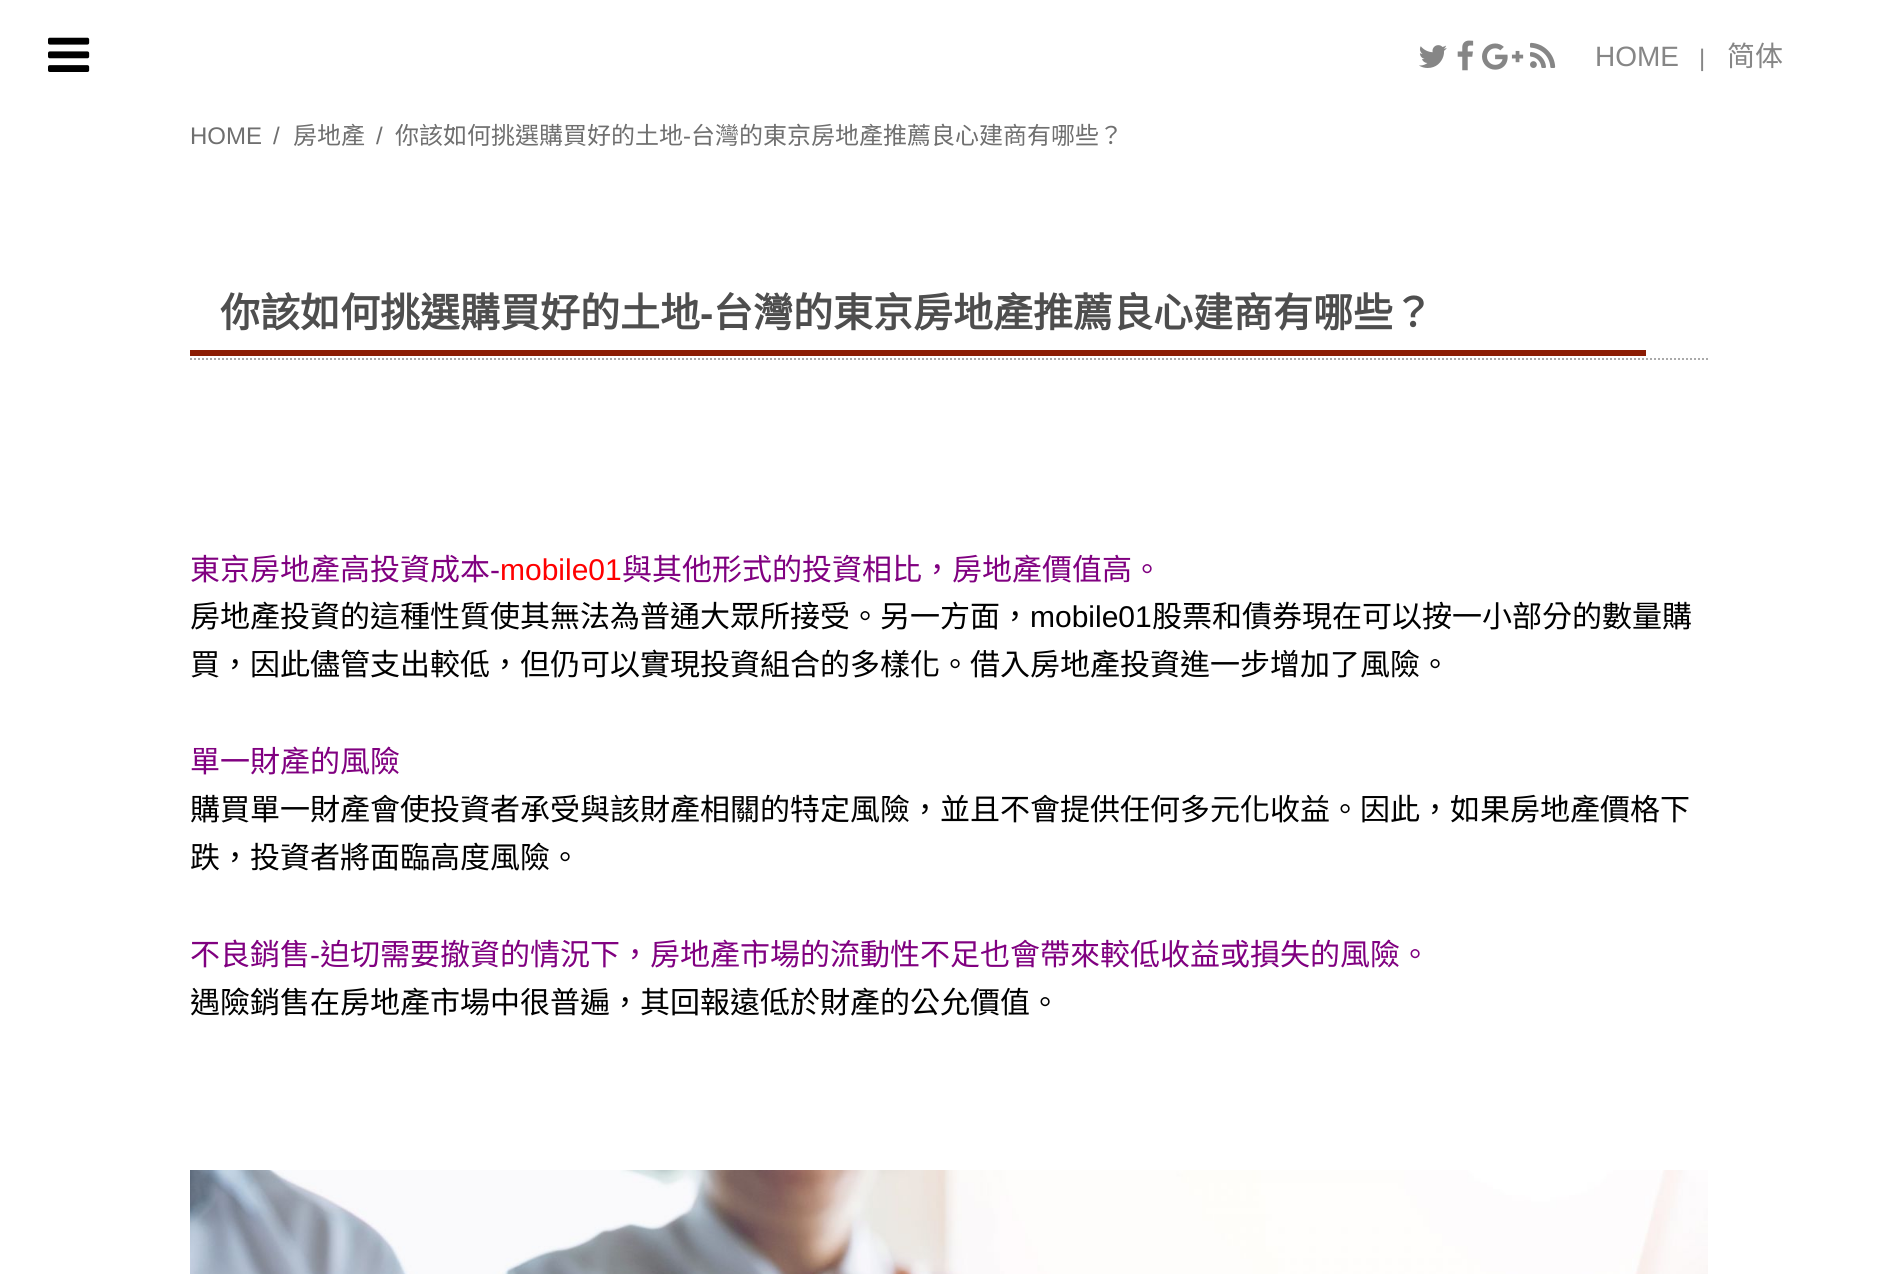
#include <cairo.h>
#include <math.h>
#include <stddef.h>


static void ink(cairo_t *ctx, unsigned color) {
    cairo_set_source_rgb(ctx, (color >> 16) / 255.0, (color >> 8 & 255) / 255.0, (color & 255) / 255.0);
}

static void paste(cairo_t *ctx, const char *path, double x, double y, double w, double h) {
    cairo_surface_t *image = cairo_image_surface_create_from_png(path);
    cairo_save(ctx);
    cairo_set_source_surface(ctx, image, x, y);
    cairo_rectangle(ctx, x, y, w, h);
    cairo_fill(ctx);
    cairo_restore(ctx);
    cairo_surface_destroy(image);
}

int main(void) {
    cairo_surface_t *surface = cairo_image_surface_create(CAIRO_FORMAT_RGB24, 1897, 1274);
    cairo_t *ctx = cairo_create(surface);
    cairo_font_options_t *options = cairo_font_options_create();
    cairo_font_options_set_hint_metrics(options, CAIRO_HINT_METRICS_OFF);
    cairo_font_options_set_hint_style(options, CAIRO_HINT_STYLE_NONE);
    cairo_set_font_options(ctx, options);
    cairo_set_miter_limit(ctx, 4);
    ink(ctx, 0xFFFFFF);
    cairo_paint(ctx);
    paste(ctx, "media/1.png", 48, 37, 42, 35);
    paste(ctx, "media/2.png", 1419, 45, 28, 23);
    paste(ctx, "media/3.png", 1457, 40, 17, 31);
    paste(ctx, "media/4.png", 1482, 43, 42, 27);
    paste(ctx, "media/5.png", 1530, 42, 26, 26);
    cairo_select_font_face(ctx, "Liberation Sans", CAIRO_FONT_SLANT_NORMAL, CAIRO_FONT_WEIGHT_NORMAL);
    cairo_set_font_size(ctx, 28);
    ink(ctx, 0x868686);
    cairo_move_to(ctx, 1595, 66);
    cairo_show_text(ctx, "HOME");
    cairo_set_font_size(ctx, 24);
    cairo_move_to(ctx, 1699, 66);
    cairo_show_text(ctx, "|");
    cairo_select_font_face(ctx, "Noto Sans CJK TC", CAIRO_FONT_SLANT_NORMAL, CAIRO_FONT_WEIGHT_NORMAL);
    cairo_set_font_size(ctx, 28);
    cairo_move_to(ctx, 1727, 66);
    cairo_show_text(ctx, "简体");
    cairo_select_font_face(ctx, "Liberation Sans", CAIRO_FONT_SLANT_NORMAL, CAIRO_FONT_WEIGHT_NORMAL);
    cairo_set_font_size(ctx, 24);
    ink(ctx, 0x6F6F6F);
    cairo_move_to(ctx, 190, 144);
    cairo_show_text(ctx, "HOME");
    cairo_move_to(ctx, 273, 144);
    cairo_show_text(ctx, "/");
    cairo_select_font_face(ctx, "Noto Sans CJK TC", CAIRO_FONT_SLANT_NORMAL, CAIRO_FONT_WEIGHT_NORMAL);
    cairo_move_to(ctx, 293, 144);
    cairo_show_text(ctx, "房地產");
    cairo_select_font_face(ctx, "Liberation Sans", CAIRO_FONT_SLANT_NORMAL, CAIRO_FONT_WEIGHT_NORMAL);
    cairo_move_to(ctx, 376, 144);
    cairo_show_text(ctx, "/");
    cairo_select_font_face(ctx, "Noto Sans CJK TC", CAIRO_FONT_SLANT_NORMAL, CAIRO_FONT_WEIGHT_NORMAL);
    cairo_move_to(ctx, 395, 144);
    cairo_show_text(ctx, "你該如何挑選購買好的土地");
    cairo_select_font_face(ctx, "Liberation Sans", CAIRO_FONT_SLANT_NORMAL, CAIRO_FONT_WEIGHT_NORMAL);
    cairo_move_to(ctx, 683, 144);
    cairo_show_text(ctx, "-");
    cairo_select_font_face(ctx, "Noto Sans CJK TC", CAIRO_FONT_SLANT_NORMAL, CAIRO_FONT_WEIGHT_NORMAL);
    cairo_move_to(ctx, 691, 144);
    cairo_show_text(ctx, "台灣的東京房地產推薦良心建商有哪些？");
    cairo_new_path(ctx);
    cairo_move_to(ctx, 190, 359);
    cairo_line_to(ctx, 1708, 359);
    ink(ctx, 0xAAAAAA);
    cairo_set_dash(ctx, (double[]){2, 2}, 2, 0);
    cairo_stroke(ctx);
    cairo_select_font_face(ctx, "Noto Sans CJK TC", CAIRO_FONT_SLANT_NORMAL, CAIRO_FONT_WEIGHT_BOLD);
    cairo_set_font_size(ctx, 40);
    ink(ctx, 0x4E4E4E);
    cairo_move_to(ctx, 220, 327);
    cairo_show_text(ctx, "你該如何挑選購買好的土地");
    cairo_select_font_face(ctx, "Liberation Sans", CAIRO_FONT_SLANT_NORMAL, CAIRO_FONT_WEIGHT_BOLD);
    cairo_move_to(ctx, 700, 327);
    cairo_show_text(ctx, "-");
    cairo_select_font_face(ctx, "Noto Sans CJK TC", CAIRO_FONT_SLANT_NORMAL, CAIRO_FONT_WEIGHT_BOLD);
    cairo_move_to(ctx, 713, 327);
    cairo_show_text(ctx, "台灣的東京房地產推薦良心建商有哪些？");
    ink(ctx, 0x8C1D04);
    cairo_rectangle(ctx, 190, 350, 1456, 6);
    cairo_fill(ctx);
    cairo_select_font_face(ctx, "Noto Sans CJK TC", CAIRO_FONT_SLANT_NORMAL, CAIRO_FONT_WEIGHT_NORMAL);
    cairo_set_font_size(ctx, 30);
    ink(ctx, 0x800080);
    cairo_move_to(ctx, 190, 580);
    cairo_show_text(ctx, "東京房地產高投資成本");
    cairo_select_font_face(ctx, "Liberation Sans", CAIRO_FONT_SLANT_NORMAL, CAIRO_FONT_WEIGHT_NORMAL);
    cairo_move_to(ctx, 490, 580);
    cairo_show_text(ctx, "-");
    ink(ctx, 0xFF0000);
    cairo_move_to(ctx, 500, 580);
    cairo_show_text(ctx, "mobile01");
    cairo_select_font_face(ctx, "Noto Sans CJK TC", CAIRO_FONT_SLANT_NORMAL, CAIRO_FONT_WEIGHT_NORMAL);
    ink(ctx, 0x800080);
    cairo_move_to(ctx, 622, 580);
    cairo_show_text(ctx, "與其他形式的投資相比，房地產價值高。");
    ink(ctx, 0x000000);
    cairo_move_to(ctx, 190, 627);
    cairo_show_text(ctx, "房地產投資的這種性質使其無法為普通大眾所接受。另一方面，");
    cairo_select_font_face(ctx, "Liberation Sans", CAIRO_FONT_SLANT_NORMAL, CAIRO_FONT_WEIGHT_NORMAL);
    cairo_move_to(ctx, 1030, 627);
    cairo_show_text(ctx, "mobile01");
    cairo_select_font_face(ctx, "Noto Sans CJK TC", CAIRO_FONT_SLANT_NORMAL, CAIRO_FONT_WEIGHT_NORMAL);
    cairo_move_to(ctx, 1152, 627);
    cairo_show_text(ctx, "股票和債券現在可以按一小部分的數量購");
    cairo_move_to(ctx, 190, 675);
    cairo_show_text(ctx, "買，因此儘管支出較低，但仍可以實現投資組合的多樣化。借入房地產投資進一步增加了風險。");
    ink(ctx, 0x800080);
    cairo_move_to(ctx, 190, 772);
    cairo_show_text(ctx, "單一財產的風險");
    ink(ctx, 0x000000);
    cairo_move_to(ctx, 190, 820);
    cairo_show_text(ctx, "購買單一財產會使投資者承受與該財產相關的特定風險，並且不會提供任何多元化收益。因此，如果房地產價格下");
    cairo_move_to(ctx, 190, 868);
    cairo_show_text(ctx, "跌，投資者將面臨高度風險。");
    ink(ctx, 0x800080);
    cairo_move_to(ctx, 190, 965);
    cairo_show_text(ctx, "不良銷售");
    cairo_select_font_face(ctx, "Liberation Sans", CAIRO_FONT_SLANT_NORMAL, CAIRO_FONT_WEIGHT_NORMAL);
    cairo_move_to(ctx, 310, 965);
    cairo_show_text(ctx, "-");
    cairo_select_font_face(ctx, "Noto Sans CJK TC", CAIRO_FONT_SLANT_NORMAL, CAIRO_FONT_WEIGHT_NORMAL);
    cairo_move_to(ctx, 320, 965);
    cairo_show_text(ctx, "迫切需要撤資的情況下，房地產市場的流動性不足也會帶來較低收益或損失的風險。");
    ink(ctx, 0x000000);
    cairo_move_to(ctx, 190, 1013);
    cairo_show_text(ctx, "遇險銷售在房地產市場中很普遍，其回報遠低於財產的公允價值。");
    paste(ctx, "media/6.png", 190, 1170, 1518, 104);
    cairo_surface_write_to_png(surface, "image.png");
    cairo_font_options_destroy(options);
    cairo_destroy(ctx);
    cairo_surface_destroy(surface);
    return 0;
}
